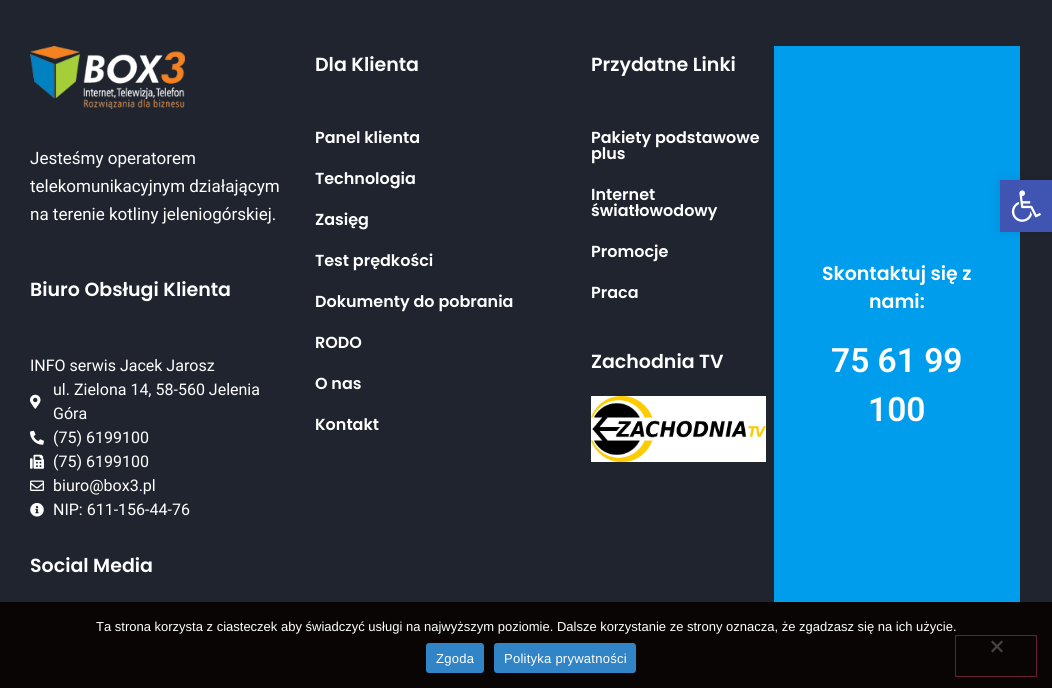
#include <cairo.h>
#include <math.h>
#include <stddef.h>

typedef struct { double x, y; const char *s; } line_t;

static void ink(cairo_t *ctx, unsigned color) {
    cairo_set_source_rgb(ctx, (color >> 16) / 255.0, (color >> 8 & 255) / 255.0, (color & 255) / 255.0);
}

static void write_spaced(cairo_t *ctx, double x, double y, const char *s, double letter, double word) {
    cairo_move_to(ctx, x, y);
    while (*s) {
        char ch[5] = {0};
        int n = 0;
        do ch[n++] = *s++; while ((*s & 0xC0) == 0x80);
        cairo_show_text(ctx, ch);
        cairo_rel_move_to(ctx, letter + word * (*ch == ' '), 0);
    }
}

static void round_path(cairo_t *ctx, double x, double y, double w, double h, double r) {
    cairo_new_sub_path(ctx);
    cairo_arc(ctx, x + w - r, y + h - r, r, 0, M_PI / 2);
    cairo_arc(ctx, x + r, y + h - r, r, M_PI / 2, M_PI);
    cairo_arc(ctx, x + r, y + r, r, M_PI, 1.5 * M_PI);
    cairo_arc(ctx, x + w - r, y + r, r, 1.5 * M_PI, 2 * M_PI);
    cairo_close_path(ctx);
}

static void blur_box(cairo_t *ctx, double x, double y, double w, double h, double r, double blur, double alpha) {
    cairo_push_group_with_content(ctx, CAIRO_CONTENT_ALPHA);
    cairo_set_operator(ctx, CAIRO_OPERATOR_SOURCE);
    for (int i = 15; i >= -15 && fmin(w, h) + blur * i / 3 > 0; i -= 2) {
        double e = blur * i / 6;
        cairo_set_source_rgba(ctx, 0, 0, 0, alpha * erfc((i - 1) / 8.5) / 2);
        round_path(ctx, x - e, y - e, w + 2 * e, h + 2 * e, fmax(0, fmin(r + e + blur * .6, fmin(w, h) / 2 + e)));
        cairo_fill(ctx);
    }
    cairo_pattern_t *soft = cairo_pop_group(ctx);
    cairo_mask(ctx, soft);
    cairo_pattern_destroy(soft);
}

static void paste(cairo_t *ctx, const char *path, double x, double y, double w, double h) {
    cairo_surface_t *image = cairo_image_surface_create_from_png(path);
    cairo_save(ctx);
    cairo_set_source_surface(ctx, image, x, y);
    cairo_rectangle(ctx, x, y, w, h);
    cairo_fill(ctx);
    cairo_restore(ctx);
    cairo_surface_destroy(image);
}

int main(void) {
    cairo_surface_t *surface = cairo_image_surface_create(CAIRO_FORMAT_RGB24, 1052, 688);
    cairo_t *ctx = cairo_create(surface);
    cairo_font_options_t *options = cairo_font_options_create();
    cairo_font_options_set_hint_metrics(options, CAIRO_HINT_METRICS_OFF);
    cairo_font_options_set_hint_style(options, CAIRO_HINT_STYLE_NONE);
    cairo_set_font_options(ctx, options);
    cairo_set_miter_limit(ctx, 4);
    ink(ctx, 0x1F242E);
    cairo_paint(ctx);
    paste(ctx, "media/1.png", 30, 46, 155, 63);
    cairo_select_font_face(ctx, "Roboto", CAIRO_FONT_SLANT_NORMAL, CAIRO_FONT_WEIGHT_NORMAL);
    cairo_set_font_size(ctx, 17);
    ink(ctx, 0xFFFFFF);
    {
        static const line_t items[] = {
            {30, 164, "Jesteśmy operatorem"},
            {30, 192, "telekomunikacyjnym działającym"},
            {30, 220, "na terenie kotliny jeleniogórskiej."},
        };
        for (size_t i = 0; i < sizeof items / sizeof *items; i++) {
            cairo_move_to(ctx, items[i].x, items[i].y);
            cairo_show_text(ctx, items[i].s);
        }
    }
    cairo_select_font_face(ctx, "Poppins SemiBold", CAIRO_FONT_SLANT_NORMAL, CAIRO_FONT_WEIGHT_NORMAL);
    cairo_set_font_size(ctx, 19);
    cairo_move_to(ctx, 30, 296);
    cairo_show_text(ctx, "Biuro Obsługi Klienta");
    cairo_select_font_face(ctx, "Roboto", CAIRO_FONT_SLANT_NORMAL, CAIRO_FONT_WEIGHT_NORMAL);
    cairo_set_font_size(ctx, 16);
    cairo_move_to(ctx, 30, 371);
    cairo_show_text(ctx, "INFO serwis Jacek Jarosz");
    paste(ctx, "media/2.png", 30, 394, 11, 15);
    cairo_move_to(ctx, 53, 395);
    cairo_show_text(ctx, "ul. Zielona 14, 58-560 Jelenia");
    cairo_move_to(ctx, 53, 419);
    cairo_show_text(ctx, "Góra");
    paste(ctx, "media/3.png", 30, 430, 14, 15);
    cairo_move_to(ctx, 53, 443);
    cairo_show_text(ctx, "(75) 6199100");
    paste(ctx, "media/4.png", 30, 454, 14, 15);
    cairo_move_to(ctx, 53, 467);
    cairo_show_text(ctx, "(75) 6199100");
    paste(ctx, "media/5.png", 30, 480, 14, 11);
    cairo_move_to(ctx, 53, 491);
    cairo_show_text(ctx, "biuro@box3.pl");
    paste(ctx, "media/6.png", 30, 503, 14, 14);
    cairo_move_to(ctx, 53, 515);
    cairo_show_text(ctx, "NIP: 611-156-44-76");
    cairo_select_font_face(ctx, "Poppins SemiBold", CAIRO_FONT_SLANT_NORMAL, CAIRO_FONT_WEIGHT_NORMAL);
    cairo_set_font_size(ctx, 19);
    cairo_move_to(ctx, 30, 572);
    cairo_show_text(ctx, "Social Media");
    cairo_move_to(ctx, 315, 71);
    cairo_show_text(ctx, "Dla Klienta");
    cairo_set_font_size(ctx, 16);
    {
        static const line_t items[] = {
            {315, 143, "Panel klienta"},
            {315, 184, "Technologia"},
            {315, 225, "Zasięg"},
            {315, 266, "Test prędkości"},
            {315, 307, "Dokumenty do pobrania"},
            {315, 348, "RODO"},
            {315, 389, "O nas"},
            {315, 430, "Kontakt"},
        };
        for (size_t i = 0; i < sizeof items / sizeof *items; i++) {
            cairo_move_to(ctx, items[i].x, items[i].y);
            cairo_show_text(ctx, items[i].s);
        }
    }
    cairo_set_font_size(ctx, 19);
    cairo_move_to(ctx, 591, 71);
    cairo_show_text(ctx, "Przydatne Linki");
    cairo_set_font_size(ctx, 16);
    {
        static const line_t items[] = {
            {591, 143, "Pakiety podstawowe"},
            {591, 159, "plus"},
            {591, 200, "Internet"},
            {591, 216, "światłowodowy"},
            {591, 257, "Promocje"},
            {591, 298, "Praca"},
        };
        for (size_t i = 0; i < sizeof items / sizeof *items; i++) {
            cairo_move_to(ctx, items[i].x, items[i].y);
            cairo_show_text(ctx, items[i].s);
        }
    }
    cairo_set_font_size(ctx, 19);
    cairo_move_to(ctx, 591, 368);
    cairo_show_text(ctx, "Zachodnia TV");
    paste(ctx, "media/7.png", 591, 396, 175, 66);
    ink(ctx, 0x009DEC);
    cairo_rectangle(ctx, 774, 46, 246, 556);
    cairo_fill(ctx);
    ink(ctx, 0xFFFFFF);
    cairo_move_to(ctx, 822, 280);
    cairo_show_text(ctx, "Skontaktuj się z");
    cairo_move_to(ctx, 869, 308);
    cairo_show_text(ctx, "nami:");
    cairo_select_font_face(ctx, "Roboto SemiBold", CAIRO_FONT_SLANT_NORMAL, CAIRO_FONT_WEIGHT_NORMAL);
    cairo_set_font_size(ctx, 33.5);
    cairo_move_to(ctx, 831, 372);
    cairo_show_text(ctx, "75 61 99");
    cairo_move_to(ctx, 868, 421);
    cairo_show_text(ctx, "100");
    ink(ctx, 0x000000);
    blur_box(ctx, 1000, 180, 52, 52, 0, 5, 0.1);
    ink(ctx, 0x4054B2);
    cairo_rectangle(ctx, 1000, 180, 52, 52);
    cairo_fill(ctx);
    paste(ctx, "media/8.png", 1011, 190, 30, 32);
    ink(ctx, 0x0A0505);
    cairo_rectangle(ctx, 0, 602, 1052, 86);
    cairo_fill(ctx);
    cairo_select_font_face(ctx, "Liberation Sans", CAIRO_FONT_SLANT_NORMAL, CAIRO_FONT_WEIGHT_NORMAL);
    cairo_set_font_size(ctx, 13);
    ink(ctx, 0xFFFFFF);
    cairo_move_to(ctx, 96, 631);
    cairo_show_text(ctx, "Ta strona korzysta z ciasteczek aby świadczyć usługi na najwyższym poziomie. Dalsze korzystanie ze strony oznacza, że zgadzasz się na ich użycie.");
    ink(ctx, 0x3184C5);
    round_path(ctx, 426, 643, 58, 30, 3);
    cairo_fill(ctx);
    ink(ctx, 0xFFFFFF);
    write_spaced(ctx, 436, 663, "Zgoda", 0.25, 0);
    ink(ctx, 0x3184C5);
    round_path(ctx, 494, 643, 142, 30, 3);
    cairo_fill(ctx);
    ink(ctx, 0xFFFFFF);
    write_spaced(ctx, 504, 663, "Polityka prywatności", 0.25, 0);
    cairo_rectangle(ctx, 955.5, 635.5, 81, 41);
    ink(ctx, 0x6B1C36);
    cairo_set_line_width(ctx, 1);
    cairo_stroke(ctx);
    ink(ctx, 0x454343);
    cairo_new_path(ctx);
    cairo_move_to(ctx, 1001.5, 640.5);
    cairo_line_to(ctx, 1003, 642);
    cairo_line_to(ctx, 992.5, 652.5);
    cairo_line_to(ctx, 991, 651);
    cairo_close_path(ctx);
    cairo_fill(ctx);
    cairo_new_path(ctx);
    cairo_move_to(ctx, 991, 642);
    cairo_line_to(ctx, 992.5, 640.5);
    cairo_line_to(ctx, 1003, 651);
    cairo_line_to(ctx, 1001.5, 652.5);
    cairo_close_path(ctx);
    cairo_fill(ctx);
    cairo_surface_write_to_png(surface, "image.png");
    cairo_font_options_destroy(options);
    cairo_destroy(ctx);
    cairo_surface_destroy(surface);
    return 0;
}
